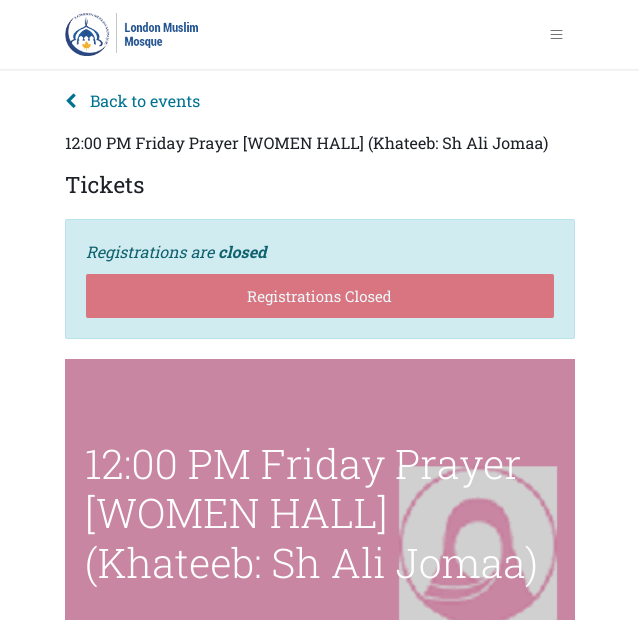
#include <cairo.h>
#include <math.h>
#include <stddef.h>

typedef struct { double x, y; const char *s; } line_t;

static void ink(cairo_t *ctx, unsigned color) {
    cairo_set_source_rgb(ctx, (color >> 16) / 255.0, (color >> 8 & 255) / 255.0, (color & 255) / 255.0);
}

static void round_path(cairo_t *ctx, double x, double y, double w, double h, double r) {
    cairo_new_sub_path(ctx);
    cairo_arc(ctx, x + w - r, y + h - r, r, 0, M_PI / 2);
    cairo_arc(ctx, x + r, y + h - r, r, M_PI / 2, M_PI);
    cairo_arc(ctx, x + r, y + r, r, M_PI, 1.5 * M_PI);
    cairo_arc(ctx, x + w - r, y + r, r, 1.5 * M_PI, 2 * M_PI);
    cairo_close_path(ctx);
}

static void blur_box(cairo_t *ctx, double x, double y, double w, double h, double r, double blur, double alpha) {
    cairo_push_group_with_content(ctx, CAIRO_CONTENT_ALPHA);
    cairo_set_operator(ctx, CAIRO_OPERATOR_SOURCE);
    for (int i = 15; i >= -15 && fmin(w, h) + blur * i / 3 > 0; i -= 2) {
        double e = blur * i / 6;
        cairo_set_source_rgba(ctx, 0, 0, 0, alpha * erfc((i - 1) / 8.5) / 2);
        round_path(ctx, x - e, y - e, w + 2 * e, h + 2 * e, fmax(0, fmin(r + e + blur * .6, fmin(w, h) / 2 + e)));
        cairo_fill(ctx);
    }
    cairo_pattern_t *soft = cairo_pop_group(ctx);
    cairo_mask(ctx, soft);
    cairo_pattern_destroy(soft);
}

static void paste(cairo_t *ctx, const char *path, double x, double y, double w, double h) {
    cairo_surface_t *image = cairo_image_surface_create_from_png(path);
    cairo_save(ctx);
    cairo_set_source_surface(ctx, image, x, y);
    cairo_rectangle(ctx, x, y, w, h);
    cairo_fill(ctx);
    cairo_restore(ctx);
    cairo_surface_destroy(image);
}

int main(void) {
    cairo_surface_t *surface = cairo_image_surface_create(CAIRO_FORMAT_RGB24, 639, 620);
    cairo_t *ctx = cairo_create(surface);
    cairo_font_options_t *options = cairo_font_options_create();
    cairo_font_options_set_hint_metrics(options, CAIRO_HINT_METRICS_OFF);
    cairo_font_options_set_hint_style(options, CAIRO_HINT_STYLE_NONE);
    cairo_set_font_options(ctx, options);
    cairo_set_miter_limit(ctx, 4);
    ink(ctx, 0xFFFFFF);
    cairo_paint(ctx);
    cairo_save(ctx);
    cairo_rectangle(ctx, 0, 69, 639, 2);
    cairo_clip(ctx);
    ink(ctx, 0x000000);
    blur_box(ctx, 0, 1, 639, 69, 0, 1.5, 0.1);
    cairo_restore(ctx);
    paste(ctx, "media/1.png", 65, 13, 133, 43);
    paste(ctx, "media/2.png", 550, 30, 13, 9);
    paste(ctx, "media/3.png", 66, 93, 10, 15);
    cairo_select_font_face(ctx, "Roboto Slab", CAIRO_FONT_SLANT_NORMAL, CAIRO_FONT_WEIGHT_NORMAL);
    cairo_set_font_size(ctx, 16);
    ink(ctx, 0x007291);
    cairo_move_to(ctx, 90, 107);
    cairo_show_text(ctx, "Back to events");
    ink(ctx, 0x1D2127);
    cairo_move_to(ctx, 65, 149);
    cairo_show_text(ctx, "12:00 PM Friday Prayer [WOMEN HALL] (Khateeb: Sh Ali Jomaa)");
    cairo_set_font_size(ctx, 22.5);
    cairo_move_to(ctx, 65, 193);
    cairo_show_text(ctx, "Tickets");
    ink(ctx, 0xD1ECF1);
    round_path(ctx, 65.5, 219.5, 509, 119, 1.5);
    cairo_fill_preserve(ctx);
    ink(ctx, 0xB9E3EA);
    cairo_set_line_width(ctx, 1);
    cairo_stroke(ctx);
    cairo_select_font_face(ctx, "Roboto Slab", CAIRO_FONT_SLANT_ITALIC, CAIRO_FONT_WEIGHT_NORMAL);
    cairo_set_font_size(ctx, 16);
    ink(ctx, 0x0E616E);
    cairo_move_to(ctx, 86, 258);
    cairo_show_text(ctx, "Registrations are");
    cairo_select_font_face(ctx, "Roboto Slab", CAIRO_FONT_SLANT_ITALIC, CAIRO_FONT_WEIGHT_BOLD);
    cairo_move_to(ctx, 218, 258);
    cairo_show_text(ctx, "closed");
    ink(ctx, 0xD87581);
    round_path(ctx, 86.5, 274.5, 467, 43, 1.5);
    cairo_fill_preserve(ctx);
    cairo_stroke(ctx);
    cairo_select_font_face(ctx, "Roboto Slab", CAIRO_FONT_SLANT_NORMAL, CAIRO_FONT_WEIGHT_NORMAL);
    cairo_set_font_size(ctx, 15);
    ink(ctx, 0xEFF8FA);
    cairo_move_to(ctx, 247, 302);
    cairo_show_text(ctx, "Registrations Closed");
    paste(ctx, "media/4.png", 65, 359, 510, 261);
    cairo_select_font_face(ctx, "Roboto Slab Light", CAIRO_FONT_SLANT_NORMAL, CAIRO_FONT_WEIGHT_NORMAL);
    cairo_set_font_size(ctx, 40.8);
    ink(ctx, 0xFFFFFF);
    {
        static const line_t items[] = {
            {85, 479, "12:00 PM Friday Prayer"},
            {85, 528, "[WOMEN HALL]"},
            {85, 578, "(Khateeb: Sh Ali Jomaa)"},
        };
        for (size_t i = 0; i < sizeof items / sizeof *items; i++) {
            cairo_move_to(ctx, items[i].x, items[i].y);
            cairo_show_text(ctx, items[i].s);
        }
    }
    cairo_surface_write_to_png(surface, "image.png");
    cairo_font_options_destroy(options);
    cairo_destroy(ctx);
    cairo_surface_destroy(surface);
    return 0;
}
